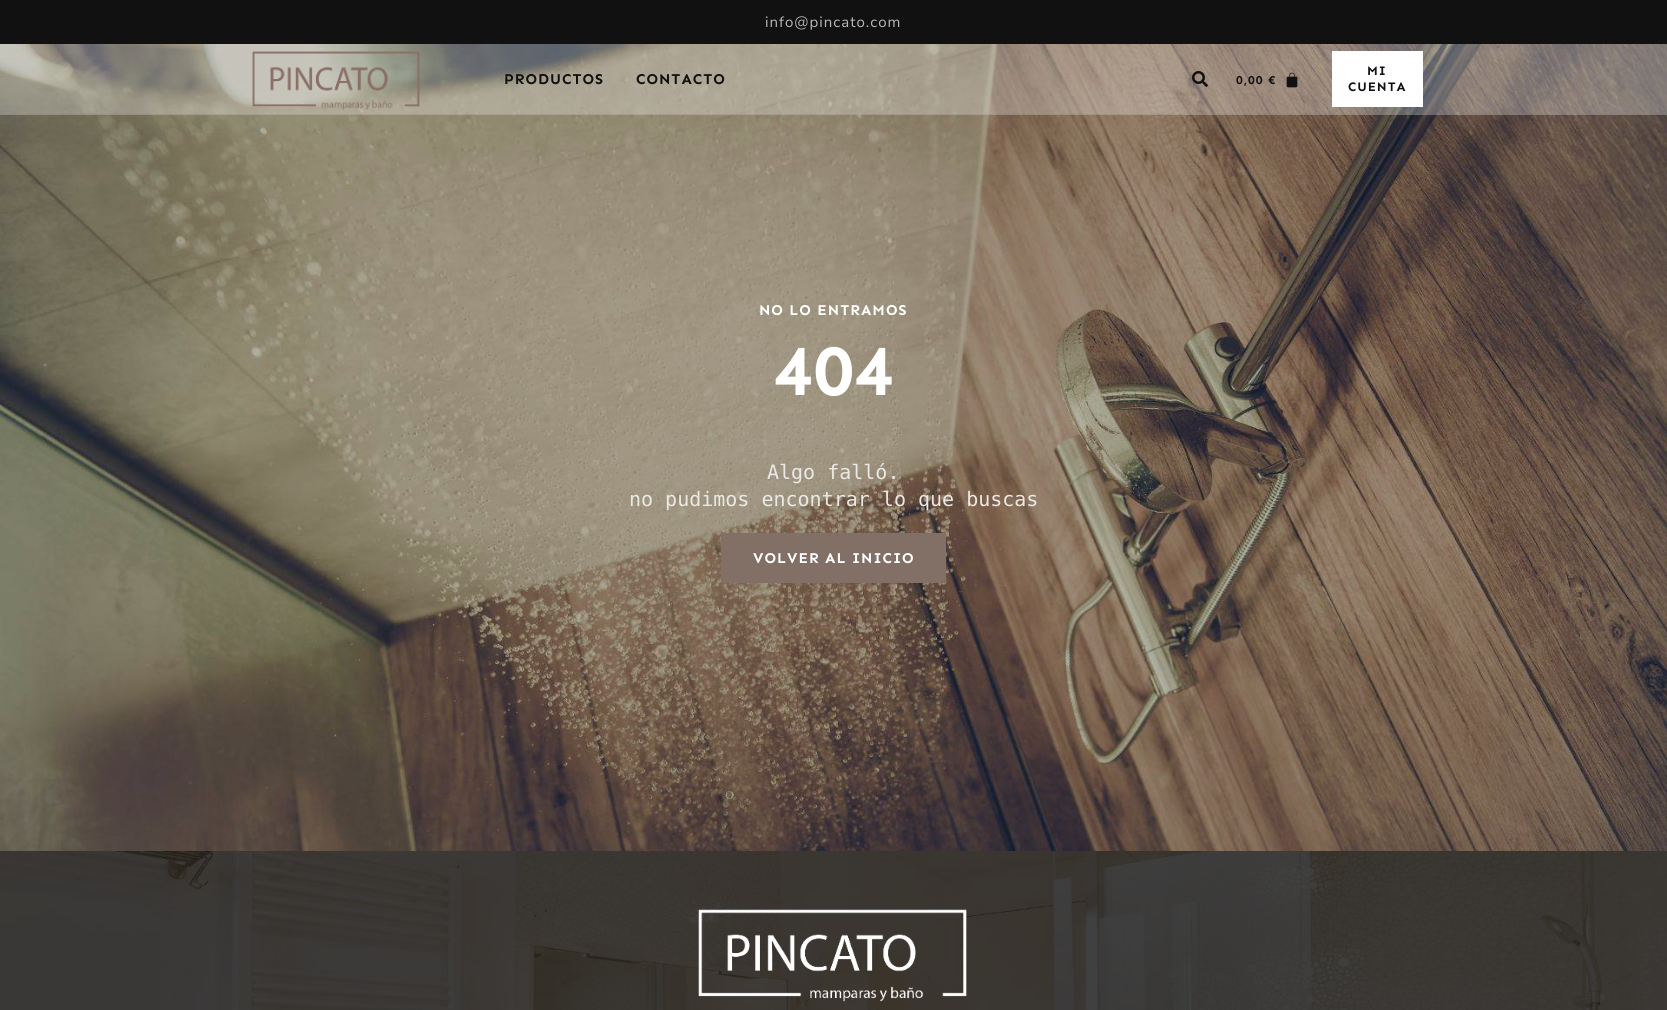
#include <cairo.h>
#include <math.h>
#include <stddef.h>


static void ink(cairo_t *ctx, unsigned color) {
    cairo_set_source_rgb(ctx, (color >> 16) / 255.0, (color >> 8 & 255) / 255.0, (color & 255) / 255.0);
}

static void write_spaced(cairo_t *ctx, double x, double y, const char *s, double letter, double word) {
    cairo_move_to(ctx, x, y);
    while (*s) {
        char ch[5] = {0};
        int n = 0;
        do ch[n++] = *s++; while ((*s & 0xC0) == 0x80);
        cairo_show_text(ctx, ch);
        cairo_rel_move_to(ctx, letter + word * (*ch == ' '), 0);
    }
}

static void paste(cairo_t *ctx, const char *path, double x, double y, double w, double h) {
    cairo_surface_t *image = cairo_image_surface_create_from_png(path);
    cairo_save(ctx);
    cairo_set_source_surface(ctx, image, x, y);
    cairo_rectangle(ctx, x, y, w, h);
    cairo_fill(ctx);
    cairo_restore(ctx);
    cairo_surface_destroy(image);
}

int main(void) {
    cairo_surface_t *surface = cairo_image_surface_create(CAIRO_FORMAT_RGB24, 1667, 1010);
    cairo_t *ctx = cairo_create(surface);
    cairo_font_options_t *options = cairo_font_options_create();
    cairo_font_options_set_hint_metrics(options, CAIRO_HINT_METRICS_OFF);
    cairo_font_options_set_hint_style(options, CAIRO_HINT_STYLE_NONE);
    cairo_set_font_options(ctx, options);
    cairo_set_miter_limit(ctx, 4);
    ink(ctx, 0xFFFFFF);
    cairo_paint(ctx);
    ink(ctx, 0x111111);
    cairo_rectangle(ctx, 0, 0, 1667, 44);
    cairo_fill(ctx);
    cairo_select_font_face(ctx, "Nunito Sans", CAIRO_FONT_SLANT_NORMAL, CAIRO_FONT_WEIGHT_NORMAL);
    cairo_set_font_size(ctx, 15);
    ink(ctx, 0xB8B8B8);
    write_spaced(ctx, 765, 27, "info@pincato.com", 1, 0);
    paste(ctx, "media/4.png", 0, 44, 1667, 807);
    cairo_set_source_rgba(ctx, 1, 1, 1, 0.28);
    cairo_rectangle(ctx, 0, 44, 1667, 71);
    cairo_fill(ctx);
    cairo_set_source_rgba(ctx, 0.51, 0.435, 0.4, 0.2);
    cairo_rectangle(ctx, 0, 114, 1667, 1);
    cairo_fill(ctx);
    paste(ctx, "media/1.png", 252, 51, 168, 59);
    cairo_select_font_face(ctx, "Sen", CAIRO_FONT_SLANT_NORMAL, CAIRO_FONT_WEIGHT_BOLD);
    ink(ctx, 0x111111);
    write_spaced(ctx, 504, 84, "PRODUCTOS", 1, 0);
    write_spaced(ctx, 636, 84, "CONTACTO", 1, 0);
    paste(ctx, "media/2.png", 1192, 71, 16, 16);
    cairo_set_font_size(ctx, 12);
    write_spaced(ctx, 1236, 84, "0,00 €", 1, 0);
    paste(ctx, "media/3.png", 1286, 72, 12, 16);
    ink(ctx, 0xFFFFFF);
    cairo_rectangle(ctx, 1332, 51, 91, 56);
    cairo_fill(ctx);
    cairo_set_font_size(ctx, 13);
    ink(ctx, 0x111111);
    write_spaced(ctx, 1367, 75, "MI", 1, 0);
    write_spaced(ctx, 1348, 91, "CUENTA", 1, 0);
    cairo_set_font_size(ctx, 15);
    ink(ctx, 0xFFFFFF);
    write_spaced(ctx, 759, 315, "NO LO ENTRAMOS", 1, 0);
    cairo_set_font_size(ctx, 72);
    cairo_move_to(ctx, 773, 395);
    cairo_show_text(ctx, "404");
    cairo_select_font_face(ctx, "DejaVu Sans Mono", CAIRO_FONT_SLANT_NORMAL, CAIRO_FONT_WEIGHT_NORMAL);
    cairo_set_font_size(ctx, 20);
    ink(ctx, 0xEBE9E5);
    cairo_move_to(ctx, 767, 479);
    cairo_show_text(ctx, "Algo falló.");
    cairo_move_to(ctx, 629, 506);
    cairo_show_text(ctx, "no pudimos encontrar lo que buscas");
    ink(ctx, 0x826F66);
    cairo_rectangle(ctx, 721, 533, 225, 50);
    cairo_fill(ctx);
    cairo_select_font_face(ctx, "Sen", CAIRO_FONT_SLANT_NORMAL, CAIRO_FONT_WEIGHT_BOLD);
    cairo_set_font_size(ctx, 15);
    ink(ctx, 0xFFFFFF);
    write_spaced(ctx, 753, 563, "VOLVER AL INICIO", 1, 0);
    paste(ctx, "media/5.png", 0, 851, 1667, 159);
    paste(ctx, "media/6.png", 698, 909, 269, 93);
    cairo_surface_write_to_png(surface, "image.png");
    cairo_font_options_destroy(options);
    cairo_destroy(ctx);
    cairo_surface_destroy(surface);
    return 0;
}
